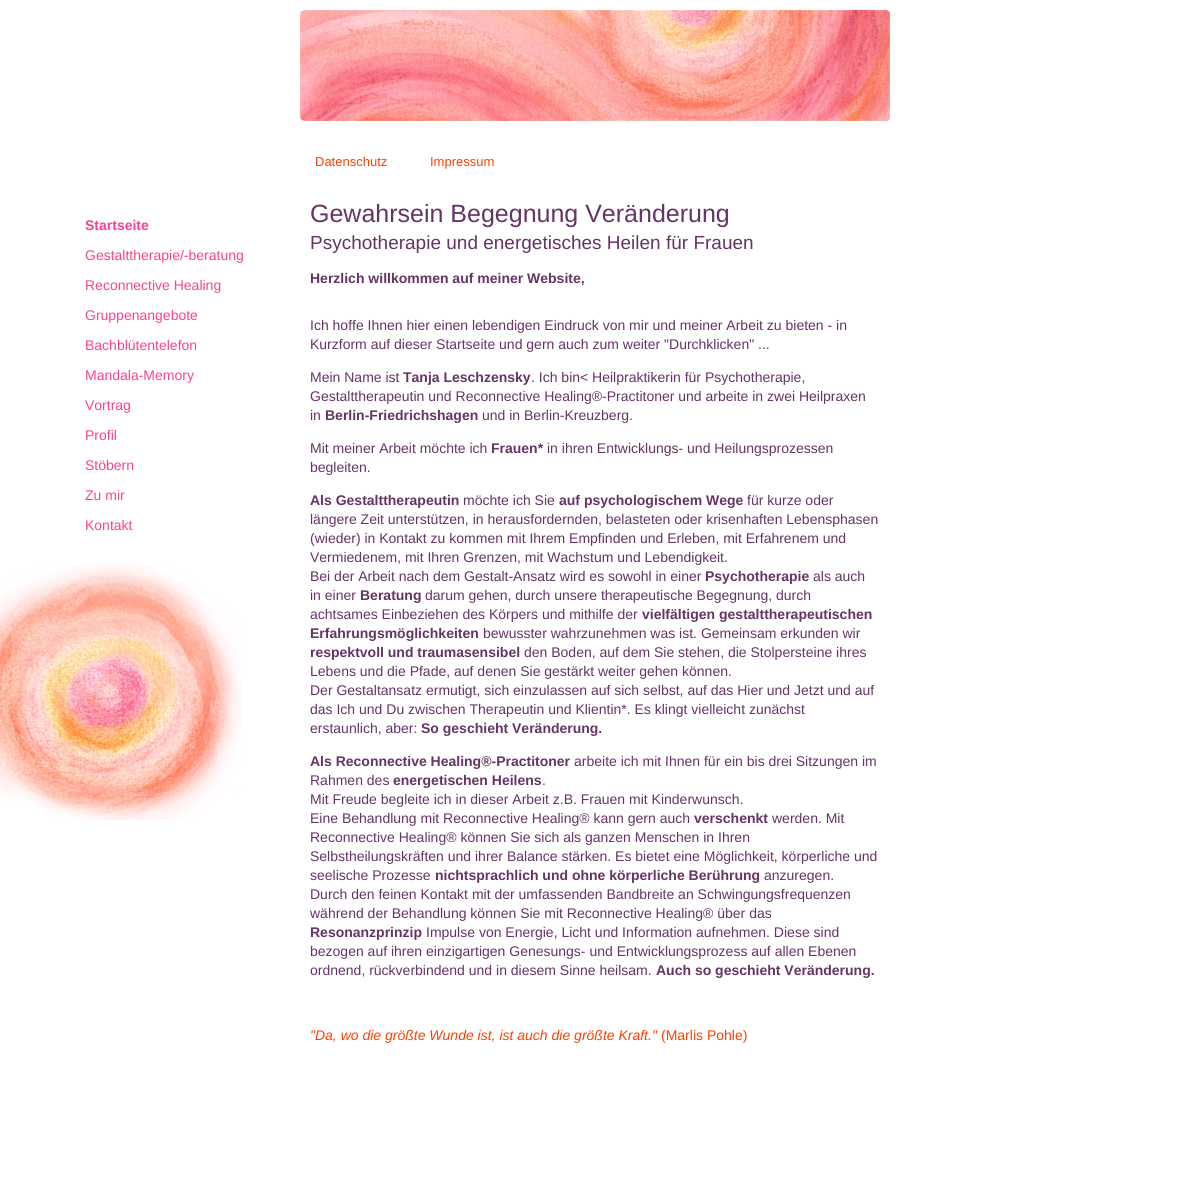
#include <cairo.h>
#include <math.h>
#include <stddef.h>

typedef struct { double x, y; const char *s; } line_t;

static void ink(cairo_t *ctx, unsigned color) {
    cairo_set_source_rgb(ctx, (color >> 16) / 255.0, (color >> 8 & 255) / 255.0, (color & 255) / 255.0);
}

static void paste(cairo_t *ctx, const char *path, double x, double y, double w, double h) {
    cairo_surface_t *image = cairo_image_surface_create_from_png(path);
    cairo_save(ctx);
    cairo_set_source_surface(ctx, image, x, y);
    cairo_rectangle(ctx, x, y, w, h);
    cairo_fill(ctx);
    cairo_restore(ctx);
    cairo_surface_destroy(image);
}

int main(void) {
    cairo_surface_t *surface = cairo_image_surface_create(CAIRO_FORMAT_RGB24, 1181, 1204);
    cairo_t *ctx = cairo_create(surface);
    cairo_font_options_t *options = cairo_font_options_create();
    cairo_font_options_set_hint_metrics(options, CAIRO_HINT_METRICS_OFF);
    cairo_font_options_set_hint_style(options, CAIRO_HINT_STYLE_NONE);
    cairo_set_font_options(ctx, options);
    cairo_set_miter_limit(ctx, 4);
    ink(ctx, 0xFFFFFF);
    cairo_paint(ctx);
    paste(ctx, "media/1.png", 300, 10, 590, 111);
    cairo_select_font_face(ctx, "Liberation Sans", CAIRO_FONT_SLANT_NORMAL, CAIRO_FONT_WEIGHT_NORMAL);
    cairo_set_font_size(ctx, 13);
    ink(ctx, 0xFF3F00);
    cairo_move_to(ctx, 315, 166);
    cairo_show_text(ctx, "Datenschutz");
    cairo_move_to(ctx, 430, 166);
    cairo_show_text(ctx, "Impressum");
    cairo_select_font_face(ctx, "Liberation Sans", CAIRO_FONT_SLANT_NORMAL, CAIRO_FONT_WEIGHT_BOLD);
    cairo_set_font_size(ctx, 14);
    ink(ctx, 0xFE418F);
    cairo_move_to(ctx, 85, 230);
    cairo_show_text(ctx, "Startseite");
    cairo_select_font_face(ctx, "Liberation Sans", CAIRO_FONT_SLANT_NORMAL, CAIRO_FONT_WEIGHT_NORMAL);
    {
        static const line_t items[] = {
            {85, 260, "Gestalttherapie/-beratung"},
            {85, 290, "Reconnective Healing"},
            {85, 320, "Gruppenangebote"},
            {85, 350, "Bachblütentelefon"},
            {85, 380, "Mandala-Memory"},
            {85, 410, "Vortrag"},
            {85, 440, "Profil"},
            {85, 470, "Stöbern"},
            {85, 500, "Zu mir"},
            {85, 530, "Kontakt"},
        };
        for (size_t i = 0; i < sizeof items / sizeof *items; i++) {
            cairo_move_to(ctx, items[i].x, items[i].y);
            cairo_show_text(ctx, items[i].s);
        }
    }
    cairo_set_font_size(ctx, 25);
    ink(ctx, 0x663366);
    cairo_move_to(ctx, 310, 222);
    cairo_show_text(ctx, "Gewahrsein Begegnung Veränderung");
    cairo_set_font_size(ctx, 19);
    cairo_move_to(ctx, 310, 249);
    cairo_show_text(ctx, "Psychotherapie und energetisches Heilen für Frauen");
    cairo_select_font_face(ctx, "Liberation Sans", CAIRO_FONT_SLANT_NORMAL, CAIRO_FONT_WEIGHT_BOLD);
    cairo_set_font_size(ctx, 14);
    cairo_move_to(ctx, 310, 283);
    cairo_show_text(ctx, "Herzlich willkommen auf meiner Website,");
    cairo_select_font_face(ctx, "Liberation Sans", CAIRO_FONT_SLANT_NORMAL, CAIRO_FONT_WEIGHT_NORMAL);
    {
        static const line_t items[] = {
            {310, 330, "Ich hoffe Ihnen hier einen lebendigen Eindruck von mir und meiner Arbeit zu bieten - in"},
            {310, 349, "Kurzform auf dieser Startseite und gern auch zum weiter \"Durchklicken\" ..."},
            {310, 382, "Mein Name ist"},
        };
        for (size_t i = 0; i < sizeof items / sizeof *items; i++) {
            cairo_move_to(ctx, items[i].x, items[i].y);
            cairo_show_text(ctx, items[i].s);
        }
    }
    cairo_select_font_face(ctx, "Liberation Sans", CAIRO_FONT_SLANT_NORMAL, CAIRO_FONT_WEIGHT_BOLD);
    cairo_move_to(ctx, 403, 382);
    cairo_show_text(ctx, "Tanja Leschzensky");
    cairo_select_font_face(ctx, "Liberation Sans", CAIRO_FONT_SLANT_NORMAL, CAIRO_FONT_WEIGHT_NORMAL);
    {
        static const line_t items[] = {
            {531, 382, ". Ich bin< Heilpraktikerin für Psychotherapie,"},
            {310, 401, "Gestalttherapeutin und Reconnective Healing®-Practitoner und arbeite in zwei Heilpraxen"},
            {310, 420, "in"},
        };
        for (size_t i = 0; i < sizeof items / sizeof *items; i++) {
            cairo_move_to(ctx, items[i].x, items[i].y);
            cairo_show_text(ctx, items[i].s);
        }
    }
    cairo_select_font_face(ctx, "Liberation Sans", CAIRO_FONT_SLANT_NORMAL, CAIRO_FONT_WEIGHT_BOLD);
    cairo_move_to(ctx, 325, 420);
    cairo_show_text(ctx, "Berlin-Friedrichshagen");
    cairo_select_font_face(ctx, "Liberation Sans", CAIRO_FONT_SLANT_NORMAL, CAIRO_FONT_WEIGHT_NORMAL);
    cairo_move_to(ctx, 482, 420);
    cairo_show_text(ctx, "und in Berlin-Kreuzberg.");
    cairo_move_to(ctx, 310, 453);
    cairo_show_text(ctx, "Mit meiner Arbeit möchte ich");
    cairo_select_font_face(ctx, "Liberation Sans", CAIRO_FONT_SLANT_NORMAL, CAIRO_FONT_WEIGHT_BOLD);
    cairo_move_to(ctx, 491, 453);
    cairo_show_text(ctx, "Frauen*");
    cairo_select_font_face(ctx, "Liberation Sans", CAIRO_FONT_SLANT_NORMAL, CAIRO_FONT_WEIGHT_NORMAL);
    cairo_move_to(ctx, 547, 453);
    cairo_show_text(ctx, "in ihren Entwicklungs- und Heilungsprozessen");
    cairo_move_to(ctx, 310, 472);
    cairo_show_text(ctx, "begleiten.");
    cairo_select_font_face(ctx, "Liberation Sans", CAIRO_FONT_SLANT_NORMAL, CAIRO_FONT_WEIGHT_BOLD);
    cairo_move_to(ctx, 310, 505);
    cairo_show_text(ctx, "Als Gestalttherapeutin");
    cairo_select_font_face(ctx, "Liberation Sans", CAIRO_FONT_SLANT_NORMAL, CAIRO_FONT_WEIGHT_NORMAL);
    cairo_move_to(ctx, 463, 505);
    cairo_show_text(ctx, "möchte ich Sie");
    cairo_select_font_face(ctx, "Liberation Sans", CAIRO_FONT_SLANT_NORMAL, CAIRO_FONT_WEIGHT_BOLD);
    cairo_move_to(ctx, 559, 505);
    cairo_show_text(ctx, "auf psychologischem Wege");
    cairo_select_font_face(ctx, "Liberation Sans", CAIRO_FONT_SLANT_NORMAL, CAIRO_FONT_WEIGHT_NORMAL);
    {
        static const line_t items[] = {
            {747, 505, "für kurze oder"},
            {310, 524, "längere Zeit unterstützen, in herausfordernden, belasteten oder krisenhaften Lebensphasen"},
            {310, 543, "(wieder) in Kontakt zu kommen mit Ihrem Empfinden und Erleben, mit Erfahrenem und"},
            {310, 562, "Vermiedenem, mit Ihren Grenzen, mit Wachstum und Lebendigkeit."},
            {310, 581, "Bei der Arbeit nach dem Gestalt-Ansatz wird es sowohl in einer"},
        };
        for (size_t i = 0; i < sizeof items / sizeof *items; i++) {
            cairo_move_to(ctx, items[i].x, items[i].y);
            cairo_show_text(ctx, items[i].s);
        }
    }
    cairo_select_font_face(ctx, "Liberation Sans", CAIRO_FONT_SLANT_NORMAL, CAIRO_FONT_WEIGHT_BOLD);
    cairo_move_to(ctx, 705, 581);
    cairo_show_text(ctx, "Psychotherapie");
    cairo_select_font_face(ctx, "Liberation Sans", CAIRO_FONT_SLANT_NORMAL, CAIRO_FONT_WEIGHT_NORMAL);
    cairo_move_to(ctx, 813, 581);
    cairo_show_text(ctx, "als auch");
    cairo_move_to(ctx, 310, 600);
    cairo_show_text(ctx, "in einer");
    cairo_select_font_face(ctx, "Liberation Sans", CAIRO_FONT_SLANT_NORMAL, CAIRO_FONT_WEIGHT_BOLD);
    cairo_move_to(ctx, 360, 600);
    cairo_show_text(ctx, "Beratung");
    cairo_select_font_face(ctx, "Liberation Sans", CAIRO_FONT_SLANT_NORMAL, CAIRO_FONT_WEIGHT_NORMAL);
    cairo_move_to(ctx, 425, 600);
    cairo_show_text(ctx, "darum gehen, durch unsere therapeutische Begegnung, durch");
    cairo_move_to(ctx, 310, 619);
    cairo_show_text(ctx, "achtsames Einbeziehen des Körpers und mithilfe der");
    cairo_select_font_face(ctx, "Liberation Sans", CAIRO_FONT_SLANT_NORMAL, CAIRO_FONT_WEIGHT_BOLD);
    cairo_move_to(ctx, 642, 619);
    cairo_show_text(ctx, "vielfältigen gestalttherapeutischen");
    cairo_move_to(ctx, 310, 638);
    cairo_show_text(ctx, "Erfahrungsmöglichkeiten");
    cairo_select_font_face(ctx, "Liberation Sans", CAIRO_FONT_SLANT_NORMAL, CAIRO_FONT_WEIGHT_NORMAL);
    cairo_move_to(ctx, 483, 638);
    cairo_show_text(ctx, "bewusster wahrzunehmen was ist. Gemeinsam erkunden wir");
    cairo_select_font_face(ctx, "Liberation Sans", CAIRO_FONT_SLANT_NORMAL, CAIRO_FONT_WEIGHT_BOLD);
    cairo_move_to(ctx, 310, 657);
    cairo_show_text(ctx, "respektvoll und traumasensibel");
    cairo_select_font_face(ctx, "Liberation Sans", CAIRO_FONT_SLANT_NORMAL, CAIRO_FONT_WEIGHT_NORMAL);
    {
        static const line_t items[] = {
            {524, 657, "den Boden, auf dem Sie stehen, die Stolpersteine ihres"},
            {310, 676, "Lebens und die Pfade, auf denen Sie gestärkt weiter gehen können."},
            {310, 695, "Der Gestaltansatz ermutigt, sich einzulassen auf sich selbst, auf das Hier und Jetzt und auf"},
            {310, 714, "das Ich und Du zwischen Therapeutin und Klientin*. Es klingt vielleicht zunächst"},
            {310, 733, "erstaunlich, aber:"},
        };
        for (size_t i = 0; i < sizeof items / sizeof *items; i++) {
            cairo_move_to(ctx, items[i].x, items[i].y);
            cairo_show_text(ctx, items[i].s);
        }
    }
    cairo_select_font_face(ctx, "Liberation Sans", CAIRO_FONT_SLANT_NORMAL, CAIRO_FONT_WEIGHT_BOLD);
    cairo_move_to(ctx, 421, 733);
    cairo_show_text(ctx, "So geschieht Veränderung.");
    cairo_move_to(ctx, 310, 766);
    cairo_show_text(ctx, "Als Reconnective Healing®-Practitoner");
    cairo_select_font_face(ctx, "Liberation Sans", CAIRO_FONT_SLANT_NORMAL, CAIRO_FONT_WEIGHT_NORMAL);
    cairo_move_to(ctx, 574, 766);
    cairo_show_text(ctx, "arbeite ich mit Ihnen für ein bis drei Sitzungen im");
    cairo_move_to(ctx, 310, 785);
    cairo_show_text(ctx, "Rahmen des");
    cairo_select_font_face(ctx, "Liberation Sans", CAIRO_FONT_SLANT_NORMAL, CAIRO_FONT_WEIGHT_BOLD);
    cairo_move_to(ctx, 393, 785);
    cairo_show_text(ctx, "energetischen Heilens");
    cairo_select_font_face(ctx, "Liberation Sans", CAIRO_FONT_SLANT_NORMAL, CAIRO_FONT_WEIGHT_NORMAL);
    {
        static const line_t items[] = {
            {542, 785, "."},
            {310, 804, "Mit Freude begleite ich in dieser Arbeit z.B. Frauen mit Kinderwunsch."},
            {310, 823, "Eine Behandlung mit Reconnective Healing® kann gern auch"},
        };
        for (size_t i = 0; i < sizeof items / sizeof *items; i++) {
            cairo_move_to(ctx, items[i].x, items[i].y);
            cairo_show_text(ctx, items[i].s);
        }
    }
    cairo_select_font_face(ctx, "Liberation Sans", CAIRO_FONT_SLANT_NORMAL, CAIRO_FONT_WEIGHT_BOLD);
    cairo_move_to(ctx, 694, 823);
    cairo_show_text(ctx, "verschenkt");
    cairo_select_font_face(ctx, "Liberation Sans", CAIRO_FONT_SLANT_NORMAL, CAIRO_FONT_WEIGHT_NORMAL);
    {
        static const line_t items[] = {
            {772, 823, "werden. Mit"},
            {310, 842, "Reconnective Healing® können Sie sich als ganzen Menschen in Ihren"},
            {310, 861, "Selbstheilungskräften und ihrer Balance stärken. Es bietet eine Möglichkeit, körperliche und"},
            {310, 880, "seelische Prozesse"},
        };
        for (size_t i = 0; i < sizeof items / sizeof *items; i++) {
            cairo_move_to(ctx, items[i].x, items[i].y);
            cairo_show_text(ctx, items[i].s);
        }
    }
    cairo_select_font_face(ctx, "Liberation Sans", CAIRO_FONT_SLANT_NORMAL, CAIRO_FONT_WEIGHT_BOLD);
    cairo_move_to(ctx, 435, 880);
    cairo_show_text(ctx, "nichtsprachlich und ohne körperliche Berührung");
    cairo_select_font_face(ctx, "Liberation Sans", CAIRO_FONT_SLANT_NORMAL, CAIRO_FONT_WEIGHT_NORMAL);
    {
        static const line_t items[] = {
            {764, 880, "anzuregen."},
            {310, 899, "Durch den feinen Kontakt mit der umfassenden Bandbreite an Schwingungsfrequenzen"},
            {310, 918, "während der Behandlung können Sie mit Reconnective Healing® über das"},
        };
        for (size_t i = 0; i < sizeof items / sizeof *items; i++) {
            cairo_move_to(ctx, items[i].x, items[i].y);
            cairo_show_text(ctx, items[i].s);
        }
    }
    cairo_select_font_face(ctx, "Liberation Sans", CAIRO_FONT_SLANT_NORMAL, CAIRO_FONT_WEIGHT_BOLD);
    cairo_move_to(ctx, 310, 937);
    cairo_show_text(ctx, "Resonanzprinzip");
    cairo_select_font_face(ctx, "Liberation Sans", CAIRO_FONT_SLANT_NORMAL, CAIRO_FONT_WEIGHT_NORMAL);
    {
        static const line_t items[] = {
            {426, 937, "Impulse von Energie, Licht und Information aufnehmen. Diese sind"},
            {310, 956, "bezogen auf ihren einzigartigen Genesungs- und Entwicklungsprozess auf allen Ebenen"},
            {310, 975, "ordnend, rückverbindend und in diesem Sinne heilsam."},
        };
        for (size_t i = 0; i < sizeof items / sizeof *items; i++) {
            cairo_move_to(ctx, items[i].x, items[i].y);
            cairo_show_text(ctx, items[i].s);
        }
    }
    cairo_select_font_face(ctx, "Liberation Sans", CAIRO_FONT_SLANT_NORMAL, CAIRO_FONT_WEIGHT_BOLD);
    cairo_move_to(ctx, 656, 975);
    cairo_show_text(ctx, "Auch so geschieht Veränderung.");
    cairo_select_font_face(ctx, "Liberation Sans", CAIRO_FONT_SLANT_ITALIC, CAIRO_FONT_WEIGHT_NORMAL);
    ink(ctx, 0xFF3F00);
    cairo_move_to(ctx, 310, 1040);
    cairo_show_text(ctx, "\"Da, wo die größte Wunde ist, ist auch die größte Kraft.\"");
    cairo_select_font_face(ctx, "Liberation Sans", CAIRO_FONT_SLANT_NORMAL, CAIRO_FONT_WEIGHT_NORMAL);
    cairo_move_to(ctx, 661, 1040);
    cairo_show_text(ctx, "(Marlis Pohle)");
    paste(ctx, "media/2.png", 0, 564, 242, 256);
    cairo_surface_write_to_png(surface, "image.png");
    cairo_font_options_destroy(options);
    cairo_destroy(ctx);
    cairo_surface_destroy(surface);
    return 0;
}
